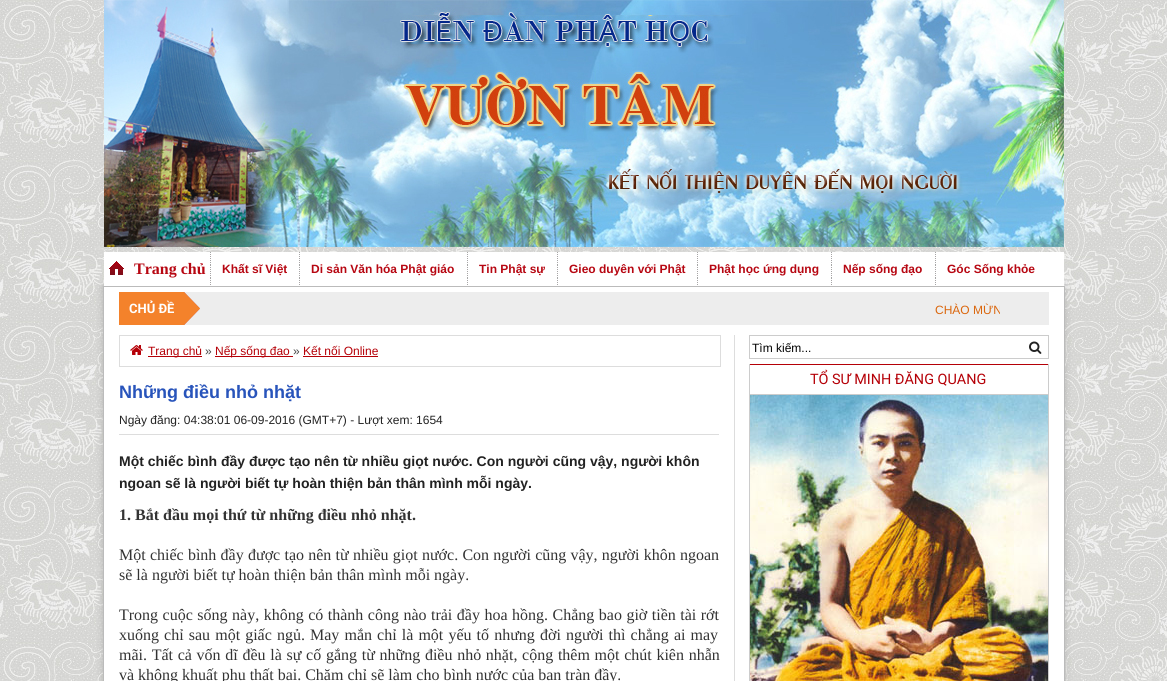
#include <cairo.h>
#include <math.h>
#include <stddef.h>

typedef struct { double x, y, w, h; unsigned color; } box_t;

static void ink(cairo_t *ctx, unsigned color) {
    cairo_set_source_rgb(ctx, (color >> 16) / 255.0, (color >> 8 & 255) / 255.0, (color & 255) / 255.0);
}

static void write_spaced(cairo_t *ctx, double x, double y, const char *s, double letter, double word) {
    cairo_move_to(ctx, x, y);
    while (*s) {
        char ch[5] = {0};
        int n = 0;
        do ch[n++] = *s++; while ((*s & 0xC0) == 0x80);
        cairo_show_text(ctx, ch);
        cairo_rel_move_to(ctx, letter + word * (*ch == ' '), 0);
    }
}

static void round_path(cairo_t *ctx, double x, double y, double w, double h, double r) {
    cairo_new_sub_path(ctx);
    cairo_arc(ctx, x + w - r, y + h - r, r, 0, M_PI / 2);
    cairo_arc(ctx, x + r, y + h - r, r, M_PI / 2, M_PI);
    cairo_arc(ctx, x + r, y + r, r, M_PI, 1.5 * M_PI);
    cairo_arc(ctx, x + w - r, y + r, r, 1.5 * M_PI, 2 * M_PI);
    cairo_close_path(ctx);
}

static void blur_box(cairo_t *ctx, double x, double y, double w, double h, double r, double blur, double alpha) {
    cairo_push_group_with_content(ctx, CAIRO_CONTENT_ALPHA);
    cairo_set_operator(ctx, CAIRO_OPERATOR_SOURCE);
    for (int i = 15; i >= -15 && fmin(w, h) + blur * i / 3 > 0; i -= 2) {
        double e = blur * i / 6;
        cairo_set_source_rgba(ctx, 0, 0, 0, alpha * erfc((i - 1) / 8.5) / 2);
        round_path(ctx, x - e, y - e, w + 2 * e, h + 2 * e, fmax(0, fmin(r + e + blur * .6, fmin(w, h) / 2 + e)));
        cairo_fill(ctx);
    }
    cairo_pattern_t *soft = cairo_pop_group(ctx);
    cairo_mask(ctx, soft);
    cairo_pattern_destroy(soft);
}

static void paste(cairo_t *ctx, const char *path, double x, double y, double w, double h) {
    cairo_surface_t *image = cairo_image_surface_create_from_png(path);
    cairo_save(ctx);
    cairo_set_source_surface(ctx, image, x, y);
    cairo_rectangle(ctx, x, y, w, h);
    cairo_fill(ctx);
    cairo_restore(ctx);
    cairo_surface_destroy(image);
}

int main(void) {
    cairo_surface_t *surface = cairo_image_surface_create(CAIRO_FORMAT_RGB24, 1167, 681);
    cairo_t *ctx = cairo_create(surface);
    cairo_font_options_t *options = cairo_font_options_create();
    cairo_font_options_set_hint_metrics(options, CAIRO_HINT_METRICS_OFF);
    cairo_font_options_set_hint_style(options, CAIRO_HINT_STYLE_NONE);
    cairo_set_font_options(ctx, options);
    cairo_set_miter_limit(ctx, 4);
    ink(ctx, 0xFFFFFF);
    cairo_paint(ctx);
    paste(ctx, "media/1.png", 0, 0, 1167, 681);
    paste(ctx, "media/2.png", 104, 0, 960, 247);
    ink(ctx, 0x000000);
    blur_box(ctx, 103, 286, 962, 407, 0, 4, 0.15);
    ink(ctx, 0xFFFFFF);
    cairo_rectangle(ctx, 104, 252, 960, 34);
    cairo_fill(ctx);
    paste(ctx, "media/3.png", 109, 261, 15, 14);
    cairo_select_font_face(ctx, "Liberation Serif", CAIRO_FONT_SLANT_NORMAL, CAIRO_FONT_WEIGHT_BOLD);
    cairo_set_font_size(ctx, 16);
    ink(ctx, 0xB70712);
    cairo_move_to(ctx, 134, 274);
    cairo_show_text(ctx, "Trang chủ");
    paste(ctx, "media/4.png", 210, 252, 1, 33);
    cairo_select_font_face(ctx, "Liberation Sans", CAIRO_FONT_SLANT_NORMAL, CAIRO_FONT_WEIGHT_BOLD);
    cairo_set_font_size(ctx, 12);
    cairo_move_to(ctx, 222, 273);
    cairo_show_text(ctx, "Khất sĩ Việt");
    paste(ctx, "media/4.png", 299, 252, 1, 33);
    cairo_move_to(ctx, 311, 273);
    cairo_show_text(ctx, "Di sản Văn hóa Phật giáo");
    paste(ctx, "media/4.png", 467, 252, 1, 33);
    cairo_move_to(ctx, 479, 273);
    cairo_show_text(ctx, "Tin Phật sự");
    paste(ctx, "media/4.png", 557, 252, 1, 33);
    cairo_move_to(ctx, 569, 273);
    cairo_show_text(ctx, "Gieo duyên với Phật");
    paste(ctx, "media/4.png", 697, 252, 1, 33);
    cairo_move_to(ctx, 709, 273);
    cairo_show_text(ctx, "Phật học ứng dụng");
    paste(ctx, "media/4.png", 831, 252, 1, 33);
    cairo_move_to(ctx, 843, 273);
    cairo_show_text(ctx, "Nếp sống đạo");
    paste(ctx, "media/4.png", 935, 252, 1, 33);
    cairo_move_to(ctx, 947, 273);
    cairo_show_text(ctx, "Góc Sống khỏe");
    {
        static const box_t items[] = {
            {104, 287, 960, 394, 0xFFFFFF},
            {103, 286, 962, 1, 0xBBBBBB},
            {1064, 286, 1, 395, 0xBBBBBB},
            {103, 286, 1, 395, 0xBBBBBB},
            {184, 292, 865, 33, 0xEDEDED},
        };
        for (size_t i = 0; i < sizeof items / sizeof *items; i++) {
            ink(ctx, items[i].color);
            cairo_rectangle(ctx, items[i].x, items[i].y, items[i].w, items[i].h);
            cairo_fill(ctx);
        }
    }
    paste(ctx, "media/5.png", 119, 292, 81, 33);
    cairo_select_font_face(ctx, "Roboto", CAIRO_FONT_SLANT_NORMAL, CAIRO_FONT_WEIGHT_BOLD);
    cairo_set_font_size(ctx, 13);
    ink(ctx, 0xFFFFFF);
    cairo_move_to(ctx, 129, 313);
    cairo_show_text(ctx, "CHỦ ĐỀ");
    cairo_save(ctx);
    cairo_rectangle(ctx, 200, 302, 800, 17);
    cairo_clip(ctx);
    cairo_select_font_face(ctx, "Liberation Sans", CAIRO_FONT_SLANT_NORMAL, CAIRO_FONT_WEIGHT_NORMAL);
    cairo_set_font_size(ctx, 12);
    ink(ctx, 0xDB660C);
    cairo_move_to(ctx, 935, 314);
    cairo_show_text(ctx, "CHÀO MỪN");
    cairo_restore(ctx);
    ink(ctx, 0xDDDDDD);
    cairo_rectangle(ctx, 734, 335, 1, 346);
    cairo_fill(ctx);
    cairo_rectangle(ctx, 119.5, 335.5, 601, 31);
    cairo_set_line_width(ctx, 1);
    cairo_stroke(ctx);
    paste(ctx, "media/6.png", 130, 345, 13, 10);
    ink(ctx, 0xB50007);
    cairo_rectangle(ctx, 148, 356, 54, 1);
    cairo_fill(ctx);
    cairo_select_font_face(ctx, "Liberation Sans", CAIRO_FONT_SLANT_NORMAL, CAIRO_FONT_WEIGHT_NORMAL);
    cairo_set_font_size(ctx, 12);
    cairo_move_to(ctx, 148, 355);
    cairo_show_text(ctx, "Trang chủ");
    ink(ctx, 0x444444);
    cairo_move_to(ctx, 205, 355);
    cairo_show_text(ctx, "»");
    ink(ctx, 0xB50007);
    cairo_rectangle(ctx, 215, 356, 78, 1);
    cairo_fill(ctx);
    cairo_move_to(ctx, 215, 355);
    cairo_show_text(ctx, "Nếp sống đạo");
    ink(ctx, 0x444444);
    cairo_move_to(ctx, 293, 355);
    cairo_show_text(ctx, "»");
    ink(ctx, 0xB50007);
    cairo_move_to(ctx, 303, 355);
    cairo_show_text(ctx, "Kết nối Online");
    cairo_rectangle(ctx, 303, 356, 75, 1);
    cairo_fill(ctx);
    cairo_select_font_face(ctx, "Liberation Sans", CAIRO_FONT_SLANT_NORMAL, CAIRO_FONT_WEIGHT_BOLD);
    cairo_set_font_size(ctx, 18);
    ink(ctx, 0x2854BB);
    cairo_move_to(ctx, 119, 398);
    cairo_show_text(ctx, "Những điều nhỏ nhặt");
    cairo_select_font_face(ctx, "Liberation Sans", CAIRO_FONT_SLANT_NORMAL, CAIRO_FONT_WEIGHT_NORMAL);
    cairo_set_font_size(ctx, 12);
    ink(ctx, 0x222222);
    cairo_move_to(ctx, 119, 424);
    cairo_show_text(ctx, "Ngày đăng: 04:38:01 06-09-2016 (GMT+7) - Lượt xem: 1654");
    ink(ctx, 0xDDDDDD);
    cairo_rectangle(ctx, 119, 434, 600, 1);
    cairo_fill(ctx);
    cairo_select_font_face(ctx, "Liberation Sans", CAIRO_FONT_SLANT_NORMAL, CAIRO_FONT_WEIGHT_BOLD);
    cairo_set_font_size(ctx, 14);
    ink(ctx, 0x222222);
    cairo_move_to(ctx, 119, 466);
    cairo_show_text(ctx, "Một chiếc bình đầy được tạo nên từ nhiều giọt nước. Con người cũng vậy, người khôn");
    cairo_move_to(ctx, 119, 488);
    cairo_show_text(ctx, "ngoan sẽ là người biết tự hoàn thiện bản thân mình mỗi ngày.");
    cairo_select_font_face(ctx, "Liberation Serif", CAIRO_FONT_SLANT_NORMAL, CAIRO_FONT_WEIGHT_BOLD);
    cairo_set_font_size(ctx, 16);
    ink(ctx, 0x333333);
    cairo_move_to(ctx, 119, 520);
    cairo_show_text(ctx, "1. Bắt đầu mọi thứ từ những điều nhỏ nhặt.");
    cairo_select_font_face(ctx, "Liberation Serif", CAIRO_FONT_SLANT_NORMAL, CAIRO_FONT_WEIGHT_NORMAL);
    write_spaced(ctx, 119, 560, "Một chiếc bình đầy được tạo nên từ nhiều giọt nước. Con người cũng vậy, người khôn ngoan", 0, 0.25);
    cairo_move_to(ctx, 119, 580);
    cairo_show_text(ctx, "sẽ là người biết tự hoàn thiện bản thân mình mỗi ngày.");
    write_spaced(ctx, 119, 620, "Trong cuộc sống này, không có thành công nào trải đầy hoa hồng. Chẳng bao giờ tiền tài rớt", 0, 0.5);
    write_spaced(ctx, 119, 640, "xuống chỉ sau một giấc ngủ. May mắn chỉ là một yếu tố nhưng đời người thì chẳng ai may", 0, 1.1);
    write_spaced(ctx, 119, 660, "mãi. Tất cả vốn dĩ đều là sự cố gắng từ những điều nhỏ nhặt, cộng thêm một chút kiên nhẫn", 0, 0.7);
    cairo_move_to(ctx, 119, 680);
    cairo_show_text(ctx, "và không khuất phụ thất bại. Chăm chỉ sẽ làm cho bình nước của bạn tràn đầy.");
    cairo_rectangle(ctx, 749.5, 335.5, 299, 23);
    ink(ctx, 0xCCCCCC);
    cairo_stroke(ctx);
    cairo_select_font_face(ctx, "Liberation Sans", CAIRO_FONT_SLANT_NORMAL, CAIRO_FONT_WEIGHT_NORMAL);
    cairo_set_font_size(ctx, 12);
    ink(ctx, 0x000000);
    cairo_move_to(ctx, 752, 352);
    cairo_show_text(ctx, "Tìm kiếm...");
    paste(ctx, "media/7.png", 1029, 341, 13, 13);
    {
        static const box_t items[] = {
            {1048, 364, 1, 317, 0xCCCCCC},
            {749, 364, 1, 317, 0xCCCCCC},
            {750, 364, 298, 1, 0xB50007},
            {750, 394, 298, 1, 0xCCCCCC},
        };
        for (size_t i = 0; i < sizeof items / sizeof *items; i++) {
            ink(ctx, items[i].color);
            cairo_rectangle(ctx, items[i].x, items[i].y, items[i].w, items[i].h);
            cairo_fill(ctx);
        }
    }
    cairo_select_font_face(ctx, "Roboto", CAIRO_FONT_SLANT_NORMAL, CAIRO_FONT_WEIGHT_NORMAL);
    cairo_set_font_size(ctx, 14.4);
    ink(ctx, 0xB50007);
    cairo_move_to(ctx, 810, 384);
    cairo_show_text(ctx, "TỔ SƯ MINH ĐĂNG QUANG");
    paste(ctx, "media/8.png", 750, 395, 298, 286);
    cairo_surface_write_to_png(surface, "image.png");
    cairo_font_options_destroy(options);
    cairo_destroy(ctx);
    cairo_surface_destroy(surface);
    return 0;
}
